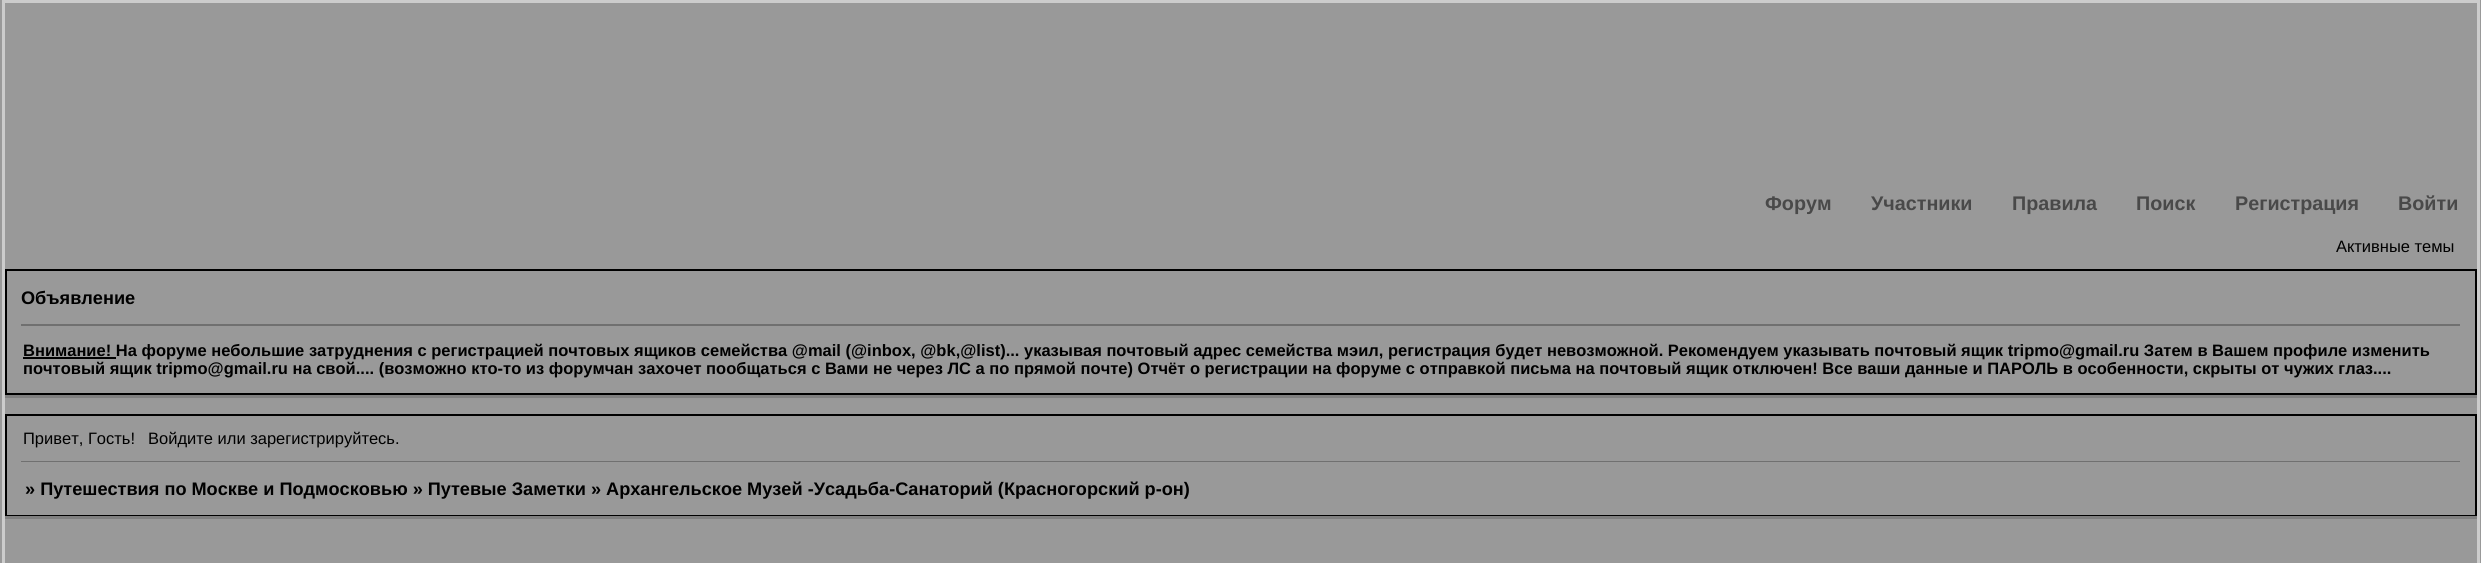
#include <cairo.h>
#include <math.h>
#include <stddef.h>

typedef struct { double x, y; const char *s; } line_t;
typedef struct { double x, y, w, h; unsigned color; } box_t;

static void ink(cairo_t *ctx, unsigned color) {
    cairo_set_source_rgb(ctx, (color >> 16) / 255.0, (color >> 8 & 255) / 255.0, (color & 255) / 255.0);
}

int main(void) {
    cairo_surface_t *surface = cairo_image_surface_create(CAIRO_FORMAT_RGB24, 2481, 563);
    cairo_t *ctx = cairo_create(surface);
    cairo_font_options_t *options = cairo_font_options_create();
    cairo_font_options_set_hint_metrics(options, CAIRO_HINT_METRICS_OFF);
    cairo_font_options_set_hint_style(options, CAIRO_HINT_STYLE_NONE);
    cairo_set_font_options(ctx, options);
    cairo_set_miter_limit(ctx, 4);
    ink(ctx, 0x999999);
    cairo_paint(ctx);
    cairo_rectangle(ctx, 3.5, 1.5, 2475, 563);
    ink(ctx, 0xCCCCCC);
    cairo_set_line_width(ctx, 3);
    cairo_stroke(ctx);
    cairo_select_font_face(ctx, "Liberation Sans", CAIRO_FONT_SLANT_NORMAL, CAIRO_FONT_WEIGHT_BOLD);
    cairo_set_font_size(ctx, 19.75);
    ink(ctx, 0x494949);
    {
        static const line_t items[] = {
            {1765, 210, "Форум"},
            {1871, 210, "Участники"},
            {2012, 210, "Правила"},
            {2136, 210, "Поиск"},
            {2235, 210, "Регистрация"},
            {2398, 210, "Войти"},
        };
        for (size_t i = 0; i < sizeof items / sizeof *items; i++) {
            cairo_move_to(ctx, items[i].x, items[i].y);
            cairo_show_text(ctx, items[i].s);
        }
    }
    cairo_select_font_face(ctx, "Liberation Sans", CAIRO_FONT_SLANT_NORMAL, CAIRO_FONT_WEIGHT_NORMAL);
    cairo_set_font_size(ctx, 16.5);
    ink(ctx, 0x000000);
    cairo_move_to(ctx, 2336, 252);
    cairo_show_text(ctx, "Активные темы");
    ink(ctx, 0x808080);
    cairo_rectangle(ctx, 5, 395, 2472, 3);
    cairo_fill(ctx);
    cairo_rectangle(ctx, 6, 270, 2470, 124);
    ink(ctx, 0x000000);
    cairo_set_line_width(ctx, 2);
    cairo_stroke(ctx);
    ink(ctx, 0x707070);
    cairo_rectangle(ctx, 21, 324, 2439, 2);
    cairo_fill(ctx);
    cairo_select_font_face(ctx, "Liberation Sans", CAIRO_FONT_SLANT_NORMAL, CAIRO_FONT_WEIGHT_BOLD);
    cairo_set_font_size(ctx, 18.15);
    ink(ctx, 0x000000);
    cairo_move_to(ctx, 21, 304);
    cairo_show_text(ctx, "Объявление");
    cairo_rectangle(ctx, 23, 357, 93, 2);
    cairo_fill(ctx);
    cairo_set_font_size(ctx, 16.5);
    cairo_move_to(ctx, 23, 356);
    cairo_show_text(ctx, "Внимание! На форуме небольшие затруднения с регистрацией почтовых ящиков семейства @mail (@inbox, @bk,@list)... указывая почтовый адрес семейства мэил, регистрация будет невозможной. Рекомендуем указывать почтовый ящик tripmo@gmail.ru Затем в Вашем профиле изменить");
    cairo_move_to(ctx, 23, 374);
    cairo_show_text(ctx, "почтовый ящик tripmo@gmail.ru на свой.... (возможно кто-то из форумчан захочет пообщаться с Вами не через ЛС а по прямой почте) Отчёт о регистрации на форуме с отправкой письма на почтовый ящик отключен! Все ваши данные и ПАРОЛЬ в особенности, скрыты от чужих глаз....");
    {
        static const box_t items[] = {
            {5, 414, 2472, 2, 0x000000},
            {2475, 414, 2, 102, 0x000000},
            {5, 414, 2, 50, 0x000000},
        };
        for (size_t i = 0; i < sizeof items / sizeof *items; i++) {
            ink(ctx, items[i].color);
            cairo_rectangle(ctx, items[i].x, items[i].y, items[i].w, items[i].h);
            cairo_fill(ctx);
        }
    }
    cairo_select_font_face(ctx, "Liberation Sans", CAIRO_FONT_SLANT_NORMAL, CAIRO_FONT_WEIGHT_NORMAL);
    cairo_move_to(ctx, 23, 444);
    cairo_show_text(ctx, "Привет, Гость!");
    cairo_move_to(ctx, 148, 444);
    cairo_show_text(ctx, "Войдите или зарегистрируйтесь.");
    {
        static const box_t items[] = {
            {21, 461, 2439, 1, 0x707070},
            {5, 516, 2472, 3, 0x808080},
            {5, 515, 2472, 1, 0x000000},
            {5, 461, 2, 55, 0x000000},
        };
        for (size_t i = 0; i < sizeof items / sizeof *items; i++) {
            ink(ctx, items[i].color);
            cairo_rectangle(ctx, items[i].x, items[i].y, items[i].w, items[i].h);
            cairo_fill(ctx);
        }
    }
    cairo_select_font_face(ctx, "Liberation Sans", CAIRO_FONT_SLANT_NORMAL, CAIRO_FONT_WEIGHT_BOLD);
    cairo_set_font_size(ctx, 18.15);
    cairo_move_to(ctx, 25, 495);
    cairo_show_text(ctx, "» Путешествия по Москве и Подмосковью » Путевые Заметки » Архангельское Музей -Усадьба-Санаторий (Красногорский р-он)");
    cairo_surface_write_to_png(surface, "image.png");
    cairo_font_options_destroy(options);
    cairo_destroy(ctx);
    cairo_surface_destroy(surface);
    return 0;
}
